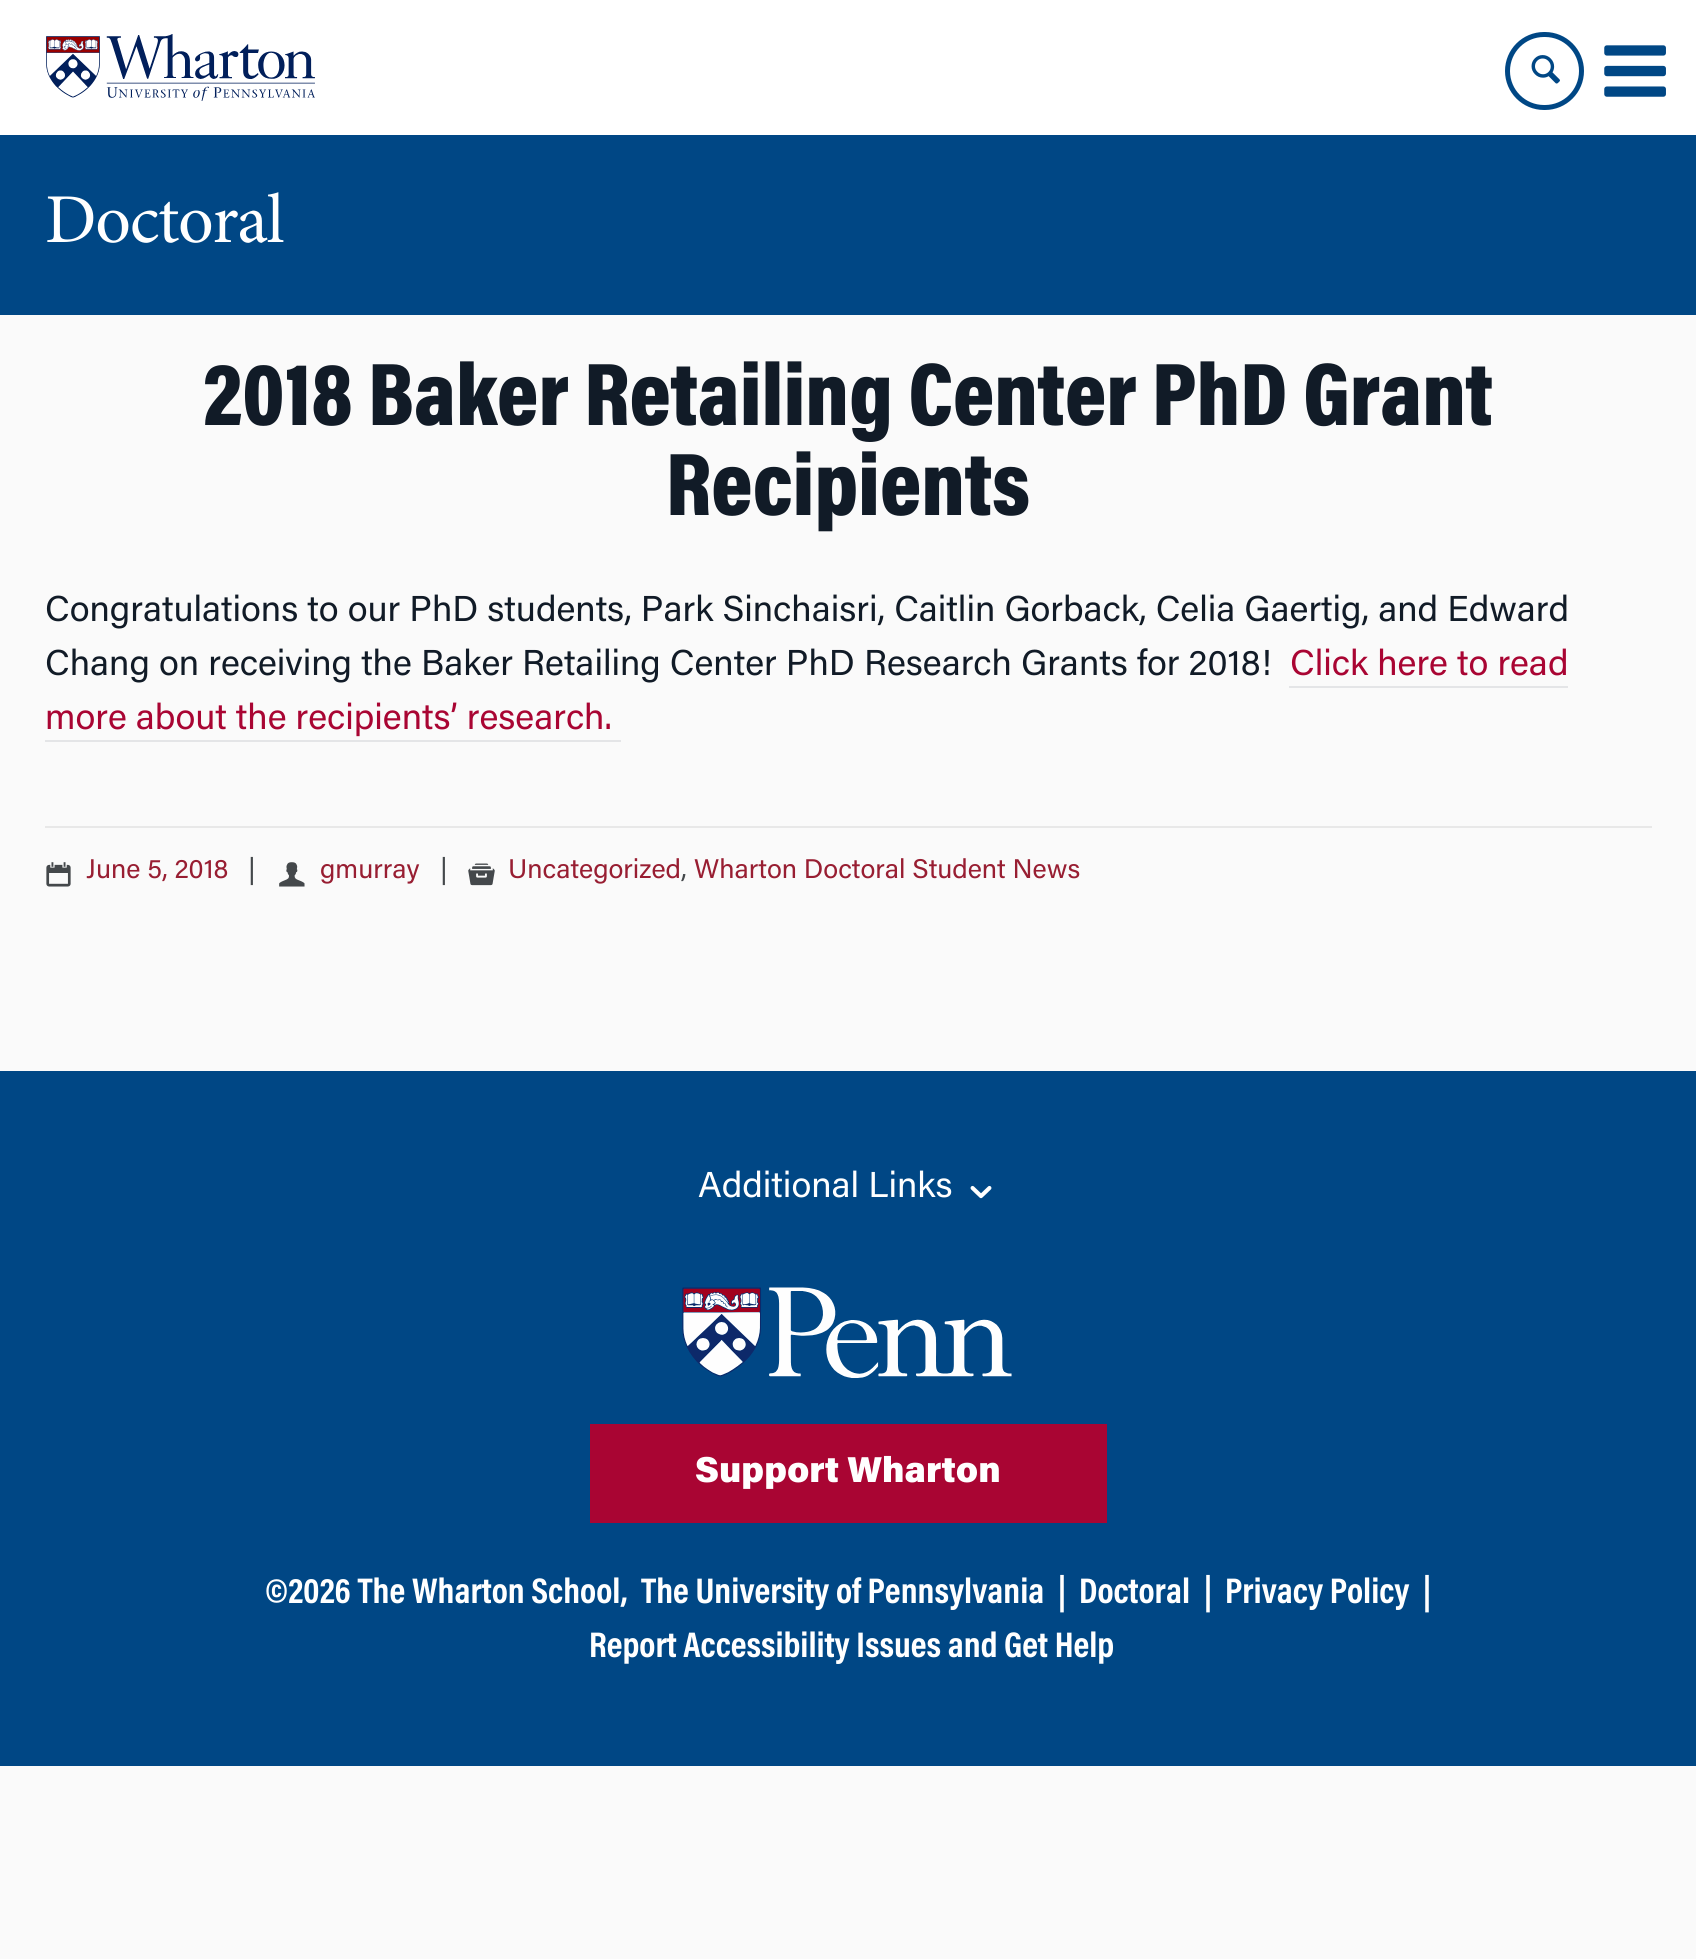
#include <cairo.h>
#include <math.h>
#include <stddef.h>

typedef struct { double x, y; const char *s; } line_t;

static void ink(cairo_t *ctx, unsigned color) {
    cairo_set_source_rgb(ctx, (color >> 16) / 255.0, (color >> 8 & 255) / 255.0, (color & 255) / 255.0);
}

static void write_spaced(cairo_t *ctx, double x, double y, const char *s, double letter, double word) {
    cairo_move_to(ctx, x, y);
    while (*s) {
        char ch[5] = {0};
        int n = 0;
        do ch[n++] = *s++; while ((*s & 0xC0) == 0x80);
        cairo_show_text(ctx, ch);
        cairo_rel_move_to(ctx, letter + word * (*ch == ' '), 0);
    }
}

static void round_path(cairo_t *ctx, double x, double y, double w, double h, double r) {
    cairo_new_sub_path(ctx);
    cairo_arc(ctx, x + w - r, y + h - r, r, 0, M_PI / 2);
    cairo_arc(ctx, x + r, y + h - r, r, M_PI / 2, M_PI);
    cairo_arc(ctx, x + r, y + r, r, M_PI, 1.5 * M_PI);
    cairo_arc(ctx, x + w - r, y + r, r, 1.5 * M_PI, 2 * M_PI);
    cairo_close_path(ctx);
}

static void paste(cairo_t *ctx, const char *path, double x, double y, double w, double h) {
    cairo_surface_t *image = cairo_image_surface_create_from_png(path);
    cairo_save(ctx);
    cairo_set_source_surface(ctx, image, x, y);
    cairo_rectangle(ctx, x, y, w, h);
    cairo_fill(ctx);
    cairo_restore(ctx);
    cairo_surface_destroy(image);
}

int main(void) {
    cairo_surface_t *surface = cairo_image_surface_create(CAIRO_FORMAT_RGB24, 1696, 1959);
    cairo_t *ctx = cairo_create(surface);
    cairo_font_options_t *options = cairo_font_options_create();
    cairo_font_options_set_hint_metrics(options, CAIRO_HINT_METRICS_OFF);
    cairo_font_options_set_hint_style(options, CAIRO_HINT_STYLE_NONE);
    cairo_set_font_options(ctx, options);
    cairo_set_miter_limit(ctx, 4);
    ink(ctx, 0xFAFAFA);
    cairo_paint(ctx);
    ink(ctx, 0xFFFFFF);
    cairo_rectangle(ctx, 0, 0, 1696, 135);
    cairo_fill(ctx);
    paste(ctx, "media/1.png", 46, 34, 269, 67);
    round_path(ctx, 1507.5, 34.5, 74, 73, 36.5);
    ink(ctx, 0x004785);
    cairo_set_line_width(ctx, 5);
    cairo_stroke(ctx);
    paste(ctx, "media/2.png", 1531, 55, 29, 29);
    paste(ctx, "media/3.png", 1604, 45, 62, 52);
    cairo_rectangle(ctx, 0, 135, 1696, 180);
    cairo_fill(ctx);
    cairo_select_font_face(ctx, "minion", CAIRO_FONT_SLANT_NORMAL, CAIRO_FONT_WEIGHT_NORMAL);
    cairo_set_font_size(ctx, 70);
    ink(ctx, 0xFFFFFF);
    write_spaced(ctx, 45, 242, "Doctoral", -1.25, 0);
    cairo_select_font_face(ctx, "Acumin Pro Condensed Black", CAIRO_FONT_SLANT_NORMAL, CAIRO_FONT_WEIGHT_NORMAL);
    cairo_set_font_size(ctx, 90);
    ink(ctx, 0x111B27);
    cairo_move_to(ctx, 203, 425);
    cairo_show_text(ctx, "2018 Baker Retailing Center PhD Grant");
    cairo_move_to(ctx, 666, 515);
    cairo_show_text(ctx, "Recipients");
    cairo_select_font_face(ctx, "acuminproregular", CAIRO_FONT_SLANT_NORMAL, CAIRO_FONT_WEIGHT_NORMAL);
    cairo_set_font_size(ctx, 36);
    cairo_move_to(ctx, 45, 621);
    cairo_show_text(ctx, "Congratulations to our PhD students, Park Sinchaisri, Caitlin Gorback, Celia Gaertig, and Edward");
    cairo_move_to(ctx, 45, 675);
    cairo_show_text(ctx, "Chang on receiving the Baker Retailing Center PhD Research Grants for 2018!");
    ink(ctx, 0xA90533);
    cairo_move_to(ctx, 1290, 675);
    cairo_show_text(ctx, "Click here to read");
    ink(ctx, 0xE4E5E7);
    cairo_rectangle(ctx, 1289, 686, 279, 2);
    cairo_fill(ctx);
    ink(ctx, 0xA90533);
    cairo_move_to(ctx, 45, 729);
    cairo_show_text(ctx, "more about the recipients’ research.");
    ink(ctx, 0xE4E5E7);
    cairo_rectangle(ctx, 45, 740, 576, 2);
    cairo_fill(ctx);
    ink(ctx, 0xE8E8E8);
    cairo_rectangle(ctx, 45, 826, 1607, 2);
    cairo_fill(ctx);
    paste(ctx, "media/4.png", 46, 862, 25, 25);
    cairo_set_font_size(ctx, 27);
    ink(ctx, 0x981E32);
    cairo_move_to(ctx, 86, 878);
    cairo_show_text(ctx, "June 5, 2018");
    ink(ctx, 0x44484B);
    cairo_move_to(ctx, 248, 878);
    cairo_show_text(ctx, "|");
    paste(ctx, "media/5.png", 279, 862, 26, 25);
    ink(ctx, 0x981E32);
    cairo_move_to(ctx, 320, 878);
    cairo_show_text(ctx, "gmurray");
    ink(ctx, 0x44484B);
    cairo_move_to(ctx, 440, 878);
    cairo_show_text(ctx, "|");
    paste(ctx, "media/6.png", 468, 863, 27, 23);
    ink(ctx, 0x981E32);
    cairo_move_to(ctx, 508, 878);
    cairo_show_text(ctx, "Uncategorized");
    ink(ctx, 0x44484B);
    cairo_move_to(ctx, 681, 878);
    cairo_show_text(ctx, ",");
    ink(ctx, 0x981E32);
    cairo_move_to(ctx, 694, 878);
    cairo_show_text(ctx, "Wharton Doctoral Student News");
    ink(ctx, 0x004785);
    cairo_rectangle(ctx, 0, 1071, 1696, 695);
    cairo_fill(ctx);
    cairo_set_font_size(ctx, 36);
    ink(ctx, 0xFFFFFF);
    cairo_move_to(ctx, 698, 1197);
    cairo_show_text(ctx, "Additional Links");
    paste(ctx, "media/7.png", 970, 1185, 22, 14);
    paste(ctx, "media/8.png", 682, 1287, 330, 91);
    ink(ctx, 0xA90533);
    cairo_rectangle(ctx, 590, 1424, 517, 99);
    cairo_fill(ctx);
    cairo_select_font_face(ctx, "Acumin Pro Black", CAIRO_FONT_SLANT_NORMAL, CAIRO_FONT_WEIGHT_NORMAL);
    ink(ctx, 0xFFFFFF);
    cairo_move_to(ctx, 695, 1482);
    cairo_show_text(ctx, "Support Wharton");
    cairo_select_font_face(ctx, "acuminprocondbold", CAIRO_FONT_SLANT_NORMAL, CAIRO_FONT_WEIGHT_BOLD);
    {
        static const line_t items[] = {
            {265, 1603, "©2026 The Wharton School,"},
            {641, 1603, "The University of Pennsylvania"},
            {1058, 1603, "|"},
            {1079, 1603, "Doctoral"},
            {1204, 1603, "|"},
            {1225, 1603, "Privacy Policy"},
            {1423, 1603, "|"},
            {589, 1657, "Report Accessibility Issues and Get Help"},
        };
        for (size_t i = 0; i < sizeof items / sizeof *items; i++) {
            cairo_move_to(ctx, items[i].x, items[i].y);
            cairo_show_text(ctx, items[i].s);
        }
    }
    cairo_surface_write_to_png(surface, "image.png");
    cairo_font_options_destroy(options);
    cairo_destroy(ctx);
    cairo_surface_destroy(surface);
    return 0;
}
